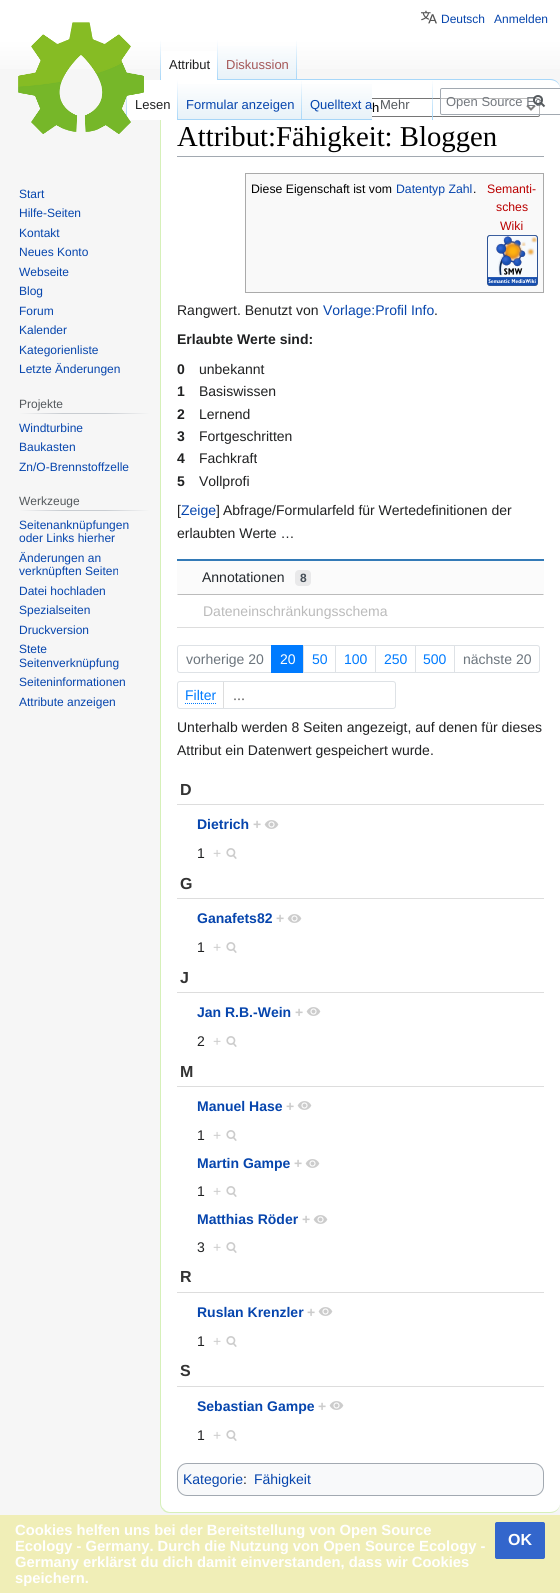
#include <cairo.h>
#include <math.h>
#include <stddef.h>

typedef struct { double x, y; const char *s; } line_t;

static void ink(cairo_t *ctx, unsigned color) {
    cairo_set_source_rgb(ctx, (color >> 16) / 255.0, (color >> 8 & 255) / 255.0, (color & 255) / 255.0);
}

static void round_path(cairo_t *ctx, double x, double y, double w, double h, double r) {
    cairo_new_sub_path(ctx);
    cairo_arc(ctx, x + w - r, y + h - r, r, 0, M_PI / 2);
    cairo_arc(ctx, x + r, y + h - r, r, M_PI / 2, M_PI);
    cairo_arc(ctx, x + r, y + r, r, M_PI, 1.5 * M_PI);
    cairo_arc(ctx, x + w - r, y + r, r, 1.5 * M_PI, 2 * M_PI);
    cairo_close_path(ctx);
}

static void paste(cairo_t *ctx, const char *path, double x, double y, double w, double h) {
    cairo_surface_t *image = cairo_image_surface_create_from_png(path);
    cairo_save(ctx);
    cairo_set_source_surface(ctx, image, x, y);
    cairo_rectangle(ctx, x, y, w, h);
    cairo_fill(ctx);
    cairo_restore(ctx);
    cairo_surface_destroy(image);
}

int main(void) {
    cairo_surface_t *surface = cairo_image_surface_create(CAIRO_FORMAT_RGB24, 560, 1593);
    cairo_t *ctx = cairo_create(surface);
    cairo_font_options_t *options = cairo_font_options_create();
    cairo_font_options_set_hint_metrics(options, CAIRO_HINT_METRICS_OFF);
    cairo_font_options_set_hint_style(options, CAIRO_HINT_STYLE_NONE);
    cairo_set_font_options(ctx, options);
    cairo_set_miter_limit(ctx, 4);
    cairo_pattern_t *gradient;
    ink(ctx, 0xF6F6F6);
    cairo_paint(ctx);
    gradient = cairo_pattern_create_linear(280, 0, 280, 80);
    cairo_pattern_add_color_stop_rgba(gradient, 0.5, 1, 1, 1, 1);
    cairo_pattern_add_color_stop_rgba(gradient, 1, 0.965, 0.965, 0.965, 1);
    cairo_set_source(ctx, gradient);
    cairo_pattern_destroy(gradient);
    cairo_rectangle(ctx, 0, 0, 560, 69);
    cairo_fill(ctx);
    paste(ctx, "media/1.png", 421, 10, 16, 14);
    cairo_select_font_face(ctx, "Liberation Sans", CAIRO_FONT_SLANT_NORMAL, CAIRO_FONT_WEIGHT_NORMAL);
    cairo_set_font_size(ctx, 12);
    ink(ctx, 0x0645AD);
    cairo_move_to(ctx, 441, 23);
    cairo_show_text(ctx, "Deutsch");
    cairo_move_to(ctx, 494, 23);
    cairo_show_text(ctx, "Anmelden");
    ink(ctx, 0xFFFFFF);
    cairo_new_path(ctx);
    cairo_move_to(ctx, 161, 80);
    cairo_line_to(ctx, 550, 80);
    cairo_curve_to(ctx, 556, 80, 560, 84, 560, 89);
    cairo_line_to(ctx, 560, 1503);
    cairo_curve_to(ctx, 560, 1508, 556, 1512, 550, 1512);
    cairo_line_to(ctx, 170, 1512);
    cairo_curve_to(ctx, 165, 1512, 161, 1508, 161, 1503);
    cairo_close_path(ctx);
    cairo_fill(ctx);
    ink(ctx, 0xA7D7F9);
    cairo_new_path(ctx);
    cairo_move_to(ctx, 160, 79);
    cairo_line_to(ctx, 161, 80);
    cairo_line_to(ctx, 550, 80);
    cairo_curve_to(ctx, 556, 80, 560, 84, 560, 89);
    cairo_curve_to(ctx, 560, 83, 556, 79, 550, 79);
    cairo_close_path(ctx);
    cairo_fill(ctx);
    ink(ctx, 0xD6F0B9);
    cairo_new_path(ctx);
    cairo_move_to(ctx, 170, 1513);
    cairo_line_to(ctx, 550, 1513);
    cairo_curve_to(ctx, 556, 1513, 560, 1509, 560, 1503);
    cairo_curve_to(ctx, 560, 1508, 556, 1512, 550, 1512);
    cairo_line_to(ctx, 170, 1512);
    cairo_curve_to(ctx, 168, 1512, 165, 1511, 164, 1509);
    cairo_line_to(ctx, 163, 1510);
    cairo_curve_to(ctx, 164, 1512, 167, 1513, 170, 1513);
    cairo_close_path(ctx);
    cairo_fill(ctx);
    cairo_new_path(ctx);
    cairo_move_to(ctx, 161, 80);
    cairo_line_to(ctx, 160, 79);
    cairo_line_to(ctx, 160, 1503);
    cairo_curve_to(ctx, 160, 1506, 161, 1508, 163, 1510);
    cairo_line_to(ctx, 164, 1509);
    cairo_curve_to(ctx, 162, 1508, 161, 1506, 161, 1503);
    cairo_close_path(ctx);
    cairo_fill(ctx);
    gradient = cairo_pattern_create_linear(161, 40, 161, 80);
    cairo_pattern_add_color_stop_rgba(gradient, 0, 0.655, 0.843, 0.976, 0);
    cairo_pattern_add_color_stop_rgba(gradient, 1, 0.655, 0.843, 0.976, 1);
    cairo_set_source(ctx, gradient);
    cairo_pattern_destroy(gradient);
    cairo_rectangle(ctx, 160, 40, 1, 40);
    cairo_fill(ctx);
    ink(ctx, 0xFFFFFF);
    cairo_rectangle(ctx, 161, 51, 56, 29);
    cairo_fill(ctx);
    gradient = cairo_pattern_create_linear(218, 40, 218, 80);
    cairo_pattern_add_color_stop_rgba(gradient, 0, 1, 1, 1, 1);
    cairo_pattern_add_color_stop_rgba(gradient, 1, 0.655, 0.843, 0.976, 1);
    cairo_set_source(ctx, gradient);
    cairo_pattern_destroy(gradient);
    cairo_rectangle(ctx, 217, 40, 1, 40);
    cairo_fill(ctx);
    cairo_set_font_size(ctx, 13);
    ink(ctx, 0x202122);
    cairo_move_to(ctx, 169, 69);
    cairo_show_text(ctx, "Attribut");
    gradient = cairo_pattern_create_linear(258, 80, 258, 40);
    cairo_pattern_add_color_stop_rgba(gradient, 0, 0.467, 0.757, 0.965, 1);
    cairo_pattern_add_color_stop_rgba(gradient, 0.03, 0.91, 0.949, 0.973, 1);
    cairo_pattern_add_color_stop_rgba(gradient, 1, 1, 1, 1, 1);
    cairo_set_source(ctx, gradient);
    cairo_pattern_destroy(gradient);
    cairo_rectangle(ctx, 218, 46, 79, 33);
    cairo_fill(ctx);
    gradient = cairo_pattern_create_linear(297, 40, 297, 80);
    cairo_pattern_add_color_stop_rgba(gradient, 0, 0.655, 0.843, 0.976, 0);
    cairo_pattern_add_color_stop_rgba(gradient, 1, 0.655, 0.843, 0.976, 1);
    cairo_set_source(ctx, gradient);
    cairo_pattern_destroy(gradient);
    cairo_rectangle(ctx, 296, 40, 1, 40);
    cairo_fill(ctx);
    ink(ctx, 0xA55858);
    cairo_move_to(ctx, 226, 69);
    cairo_show_text(ctx, "Diskussion");
    gradient = cairo_pattern_create_linear(127, 80, 127, 120);
    cairo_pattern_add_color_stop_rgba(gradient, 0, 0.965, 0.965, 0.965, 1);
    cairo_pattern_add_color_stop_rgba(gradient, 1, 0.655, 0.843, 0.976, 1);
    cairo_set_source(ctx, gradient);
    cairo_pattern_destroy(gradient);
    cairo_rectangle(ctx, 126, 96, 1, 24);
    cairo_fill(ctx);
    ink(ctx, 0xFFFFFF);
    cairo_rectangle(ctx, 127, 80, 34, 40);
    cairo_fill(ctx);
    gradient = cairo_pattern_create_linear(178, 80, 178, 120);
    cairo_pattern_add_color_stop_rgba(gradient, 0, 1, 1, 1, 1);
    cairo_pattern_add_color_stop_rgba(gradient, 1, 0.655, 0.843, 0.976, 1);
    cairo_set_source(ctx, gradient);
    cairo_pattern_destroy(gradient);
    cairo_rectangle(ctx, 177, 80, 1, 40);
    cairo_fill(ctx);
    ink(ctx, 0x202122);
    cairo_move_to(ctx, 135, 109);
    cairo_show_text(ctx, "Lesen");
    gradient = cairo_pattern_create_linear(240, 120, 240, 80);
    cairo_pattern_add_color_stop_rgba(gradient, 0, 0.467, 0.757, 0.965, 1);
    cairo_pattern_add_color_stop_rgba(gradient, 0.03, 0.91, 0.949, 0.973, 1);
    cairo_pattern_add_color_stop_rgba(gradient, 1, 1, 1, 1, 1);
    cairo_set_source(ctx, gradient);
    cairo_pattern_destroy(gradient);
    cairo_rectangle(ctx, 178, 84, 124, 36);
    cairo_fill(ctx);
    gradient = cairo_pattern_create_linear(302, 80, 302, 120);
    cairo_pattern_add_color_stop_rgba(gradient, 0, 0.655, 0.843, 0.976, 0);
    cairo_pattern_add_color_stop_rgba(gradient, 1, 0.655, 0.843, 0.976, 1);
    cairo_set_source(ctx, gradient);
    cairo_pattern_destroy(gradient);
    cairo_rectangle(ctx, 301, 80, 1, 40);
    cairo_fill(ctx);
    ink(ctx, 0x0645AD);
    cairo_move_to(ctx, 186, 109);
    cairo_show_text(ctx, "Formular anzeigen");
    round_path(ctx, 325.5, 98.5, 214, 18, 1.5);
    ink(ctx, 0x767676);
    cairo_set_line_width(ctx, 1);
    cairo_stroke(ctx);
    gradient = cairo_pattern_create_linear(337, 120, 337, 80);
    cairo_pattern_add_color_stop_rgba(gradient, 0, 0.467, 0.757, 0.965, 1);
    cairo_pattern_add_color_stop_rgba(gradient, 0.03, 0.91, 0.949, 0.973, 1);
    cairo_pattern_add_color_stop_rgba(gradient, 1, 1, 1, 1, 1);
    cairo_set_source(ctx, gradient);
    cairo_pattern_destroy(gradient);
    cairo_rectangle(ctx, 302, 84, 70, 36);
    cairo_fill(ctx);
    ink(ctx, 0x0645AD);
    cairo_move_to(ctx, 310, 109);
    cairo_show_text(ctx, "Quelltext a");
    gradient = cairo_pattern_create_linear(433, 80, 433, 120);
    cairo_pattern_add_color_stop_rgba(gradient, 0, 0.655, 0.843, 0.976, 0);
    cairo_pattern_add_color_stop_rgba(gradient, 1, 0.655, 0.843, 0.976, 1);
    cairo_set_source(ctx, gradient);
    cairo_pattern_destroy(gradient);
    cairo_rectangle(ctx, 432, 80, 1, 40);
    cairo_fill(ctx);
    ink(ctx, 0x54595D);
    cairo_move_to(ctx, 380, 109);
    cairo_show_text(ctx, "Mehr");
    cairo_new_path(ctx);
    cairo_move_to(ctx, 527, 105.5);
    cairo_line_to(ctx, 531, 109.5);
    cairo_line_to(ctx, 535, 105.5);
    ink(ctx, 0x000000);
    cairo_set_line_width(ctx, 2);
    cairo_stroke(ctx);
    cairo_set_source_rgba(ctx, 1, 1, 1, 0.5);
    round_path(ctx, 440.5, 88.5, 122, 26, 1.5);
    cairo_fill_preserve(ctx);
    ink(ctx, 0xA2A9B1);
    cairo_set_line_width(ctx, 1);
    cairo_stroke(ctx);
    ink(ctx, 0x72777D);
    cairo_move_to(ctx, 446, 106);
    cairo_show_text(ctx, "Open Source Ec");
    cairo_new_path(ctx);
    cairo_move_to(ctx, 544.5, 106.5);
    cairo_line_to(ctx, 540.5, 102.5);
    ink(ctx, 0x54595D);
    cairo_set_line_width(ctx, 2);
    cairo_stroke(ctx);
    cairo_arc(ctx, 538, 100, 4, 0, 2 * M_PI);
    cairo_stroke(ctx);
    paste(ctx, "media/2.png", 18, 22, 126, 112);
    cairo_set_font_size(ctx, 12);
    ink(ctx, 0x0645AD);
    {
        static const line_t items[] = {
            {19, 198, "Start"},
            {19, 217, "Hilfe-Seiten"},
            {19, 237, "Kontakt"},
            {19, 256, "Neues Konto"},
            {19, 276, "Webseite"},
            {19, 295, "Blog"},
            {19, 315, "Forum"},
            {19, 334, "Kalender"},
            {19, 354, "Kategorienliste"},
            {19, 373, "Letzte Änderungen"},
        };
        for (size_t i = 0; i < sizeof items / sizeof *items; i++) {
            cairo_move_to(ctx, items[i].x, items[i].y);
            cairo_show_text(ctx, items[i].s);
        }
    }
    gradient = cairo_pattern_create_linear(19, 414, 150, 414);
    cairo_pattern_add_color_stop_rgba(gradient, 0, 0.965, 0.965, 0.965, 1);
    cairo_pattern_add_color_stop_rgba(gradient, 0.33, 0.784, 0.8, 0.82, 1);
    cairo_pattern_add_color_stop_rgba(gradient, 0.66, 0.784, 0.8, 0.82, 1);
    cairo_pattern_add_color_stop_rgba(gradient, 1, 0.965, 0.965, 0.965, 1);
    cairo_set_source(ctx, gradient);
    cairo_pattern_destroy(gradient);
    cairo_rectangle(ctx, 19, 413, 131, 1);
    cairo_fill(ctx);
    ink(ctx, 0x54595D);
    cairo_move_to(ctx, 19, 408);
    cairo_show_text(ctx, "Projekte");
    ink(ctx, 0x0645AD);
    {
        static const line_t items[] = {
            {19, 432, "Windturbine"},
            {19, 451, "Baukasten"},
            {19, 471, "Zn/O-Brennstoffzelle"},
        };
        for (size_t i = 0; i < sizeof items / sizeof *items; i++) {
            cairo_move_to(ctx, items[i].x, items[i].y);
            cairo_show_text(ctx, items[i].s);
        }
    }
    gradient = cairo_pattern_create_linear(19, 511, 150, 511);
    cairo_pattern_add_color_stop_rgba(gradient, 0, 0.965, 0.965, 0.965, 1);
    cairo_pattern_add_color_stop_rgba(gradient, 0.33, 0.784, 0.8, 0.82, 1);
    cairo_pattern_add_color_stop_rgba(gradient, 0.66, 0.784, 0.8, 0.82, 1);
    cairo_pattern_add_color_stop_rgba(gradient, 1, 0.965, 0.965, 0.965, 1);
    cairo_set_source(ctx, gradient);
    cairo_pattern_destroy(gradient);
    cairo_rectangle(ctx, 19, 510, 131, 1);
    cairo_fill(ctx);
    ink(ctx, 0x54595D);
    cairo_move_to(ctx, 19, 505);
    cairo_show_text(ctx, "Werkzeuge");
    ink(ctx, 0x0645AD);
    {
        static const line_t items[] = {
            {19, 529, "Seitenanknüpfungen"},
            {19, 542, "oder Links hierher"},
            {19, 562, "Änderungen an"},
            {19, 575, "verknüpften Seiten"},
            {19, 595, "Datei hochladen"},
            {19, 614, "Spezialseiten"},
            {19, 634, "Druckversion"},
            {19, 653, "Stete"},
            {19, 667, "Seitenverknüpfung"},
            {19, 686, "Seiteninformationen"},
            {19, 706, "Attribute anzeigen"},
        };
        for (size_t i = 0; i < sizeof items / sizeof *items; i++) {
            cairo_move_to(ctx, items[i].x, items[i].y);
            cairo_show_text(ctx, items[i].s);
        }
    }
    cairo_set_font_size(ctx, 13);
    ink(ctx, 0x000000);
    cairo_move_to(ctx, 372, 112);
    cairo_show_text(ctx, "h");
    ink(ctx, 0xA2A9B1);
    cairo_rectangle(ctx, 177, 156, 367, 1);
    cairo_fill(ctx);
    cairo_select_font_face(ctx, "Liberation Serif", CAIRO_FONT_SLANT_NORMAL, CAIRO_FONT_WEIGHT_NORMAL);
    cairo_set_font_size(ctx, 28.75);
    ink(ctx, 0x000000);
    cairo_move_to(ctx, 177, 146);
    cairo_show_text(ctx, "Attribut:Fähigkeit: Bloggen");
    ink(ctx, 0xF9F9F9);
    cairo_rectangle(ctx, 245.5, 173.5, 298, 119);
    cairo_fill_preserve(ctx);
    ink(ctx, 0xAAAAAA);
    cairo_set_line_width(ctx, 1);
    cairo_stroke(ctx);
    cairo_select_font_face(ctx, "Liberation Sans", CAIRO_FONT_SLANT_NORMAL, CAIRO_FONT_WEIGHT_NORMAL);
    cairo_set_font_size(ctx, 12.25);
    ink(ctx, 0x000000);
    cairo_move_to(ctx, 251, 193);
    cairo_show_text(ctx, "Diese Eigenschaft ist vom");
    ink(ctx, 0x0645AD);
    cairo_move_to(ctx, 396, 193);
    cairo_show_text(ctx, "Datentyp Zahl");
    ink(ctx, 0x000000);
    cairo_move_to(ctx, 473, 193);
    cairo_show_text(ctx, ".");
    ink(ctx, 0xBA0000);
    {
        static const line_t items[] = {
            {487, 193, "Semanti-"},
            {496, 211, "sches"},
            {500, 230, "Wiki"},
        };
        for (size_t i = 0; i < sizeof items / sizeof *items; i++) {
            cairo_move_to(ctx, items[i].x, items[i].y);
            cairo_show_text(ctx, items[i].s);
        }
    }
    paste(ctx, "media/3.png", 487, 235, 51, 51);
    cairo_set_font_size(ctx, 14);
    ink(ctx, 0x202122);
    cairo_move_to(ctx, 177, 315);
    cairo_show_text(ctx, "Rangwert. Benutzt von");
    ink(ctx, 0x0645AD);
    cairo_move_to(ctx, 323, 315);
    cairo_show_text(ctx, "Vorlage:Profil Info");
    ink(ctx, 0x202122);
    cairo_move_to(ctx, 434, 315);
    cairo_show_text(ctx, ".");
    cairo_select_font_face(ctx, "Liberation Sans", CAIRO_FONT_SLANT_NORMAL, CAIRO_FONT_WEIGHT_BOLD);
    cairo_move_to(ctx, 177, 344);
    cairo_show_text(ctx, "Erlaubte Werte sind:");
    cairo_move_to(ctx, 177, 374);
    cairo_show_text(ctx, "0");
    cairo_select_font_face(ctx, "Liberation Sans", CAIRO_FONT_SLANT_NORMAL, CAIRO_FONT_WEIGHT_NORMAL);
    cairo_move_to(ctx, 199, 374);
    cairo_show_text(ctx, "unbekannt");
    cairo_select_font_face(ctx, "Liberation Sans", CAIRO_FONT_SLANT_NORMAL, CAIRO_FONT_WEIGHT_BOLD);
    cairo_move_to(ctx, 177, 396);
    cairo_show_text(ctx, "1");
    cairo_select_font_face(ctx, "Liberation Sans", CAIRO_FONT_SLANT_NORMAL, CAIRO_FONT_WEIGHT_NORMAL);
    cairo_move_to(ctx, 199, 396);
    cairo_show_text(ctx, "Basiswissen");
    cairo_select_font_face(ctx, "Liberation Sans", CAIRO_FONT_SLANT_NORMAL, CAIRO_FONT_WEIGHT_BOLD);
    cairo_move_to(ctx, 177, 419);
    cairo_show_text(ctx, "2");
    cairo_select_font_face(ctx, "Liberation Sans", CAIRO_FONT_SLANT_NORMAL, CAIRO_FONT_WEIGHT_NORMAL);
    cairo_move_to(ctx, 199, 419);
    cairo_show_text(ctx, "Lernend");
    cairo_select_font_face(ctx, "Liberation Sans", CAIRO_FONT_SLANT_NORMAL, CAIRO_FONT_WEIGHT_BOLD);
    cairo_move_to(ctx, 177, 441);
    cairo_show_text(ctx, "3");
    cairo_select_font_face(ctx, "Liberation Sans", CAIRO_FONT_SLANT_NORMAL, CAIRO_FONT_WEIGHT_NORMAL);
    cairo_move_to(ctx, 199, 441);
    cairo_show_text(ctx, "Fortgeschritten");
    cairo_select_font_face(ctx, "Liberation Sans", CAIRO_FONT_SLANT_NORMAL, CAIRO_FONT_WEIGHT_BOLD);
    cairo_move_to(ctx, 177, 463);
    cairo_show_text(ctx, "4");
    cairo_select_font_face(ctx, "Liberation Sans", CAIRO_FONT_SLANT_NORMAL, CAIRO_FONT_WEIGHT_NORMAL);
    cairo_move_to(ctx, 199, 463);
    cairo_show_text(ctx, "Fachkraft");
    cairo_select_font_face(ctx, "Liberation Sans", CAIRO_FONT_SLANT_NORMAL, CAIRO_FONT_WEIGHT_BOLD);
    cairo_move_to(ctx, 177, 486);
    cairo_show_text(ctx, "5");
    cairo_select_font_face(ctx, "Liberation Sans", CAIRO_FONT_SLANT_NORMAL, CAIRO_FONT_WEIGHT_NORMAL);
    cairo_move_to(ctx, 199, 486);
    cairo_show_text(ctx, "Vollprofi");
    cairo_move_to(ctx, 177, 515);
    cairo_show_text(ctx, "[");
    ink(ctx, 0x0645AD);
    cairo_move_to(ctx, 181, 515);
    cairo_show_text(ctx, "Zeige");
    ink(ctx, 0x202122);
    {
        static const line_t items[] = {
            {216, 515, "]"},
            {223, 515, "Abfrage/Formularfeld für Wertedefinitionen der"},
            {177, 538, "erlaubten Werte …"},
        };
        for (size_t i = 0; i < sizeof items / sizeof *items; i++) {
            cairo_move_to(ctx, items[i].x, items[i].y);
            cairo_show_text(ctx, items[i].s);
        }
    }
    ink(ctx, 0xFBFBFB);
    cairo_rectangle(ctx, 177, 561, 367, 33);
    cairo_fill(ctx);
    ink(ctx, 0x337AB7);
    cairo_rectangle(ctx, 177, 559, 367, 2);
    cairo_fill(ctx);
    ink(ctx, 0x24292E);
    cairo_move_to(ctx, 202, 582);
    cairo_show_text(ctx, "Annotationen");
    ink(ctx, 0xE9E9EA);
    round_path(ctx, 295, 570, 16, 16, 4);
    cairo_fill(ctx);
    cairo_select_font_face(ctx, "Liberation Sans", CAIRO_FONT_SLANT_NORMAL, CAIRO_FONT_WEIGHT_BOLD);
    cairo_set_font_size(ctx, 12);
    ink(ctx, 0x444D56);
    cairo_move_to(ctx, 300, 582);
    cairo_show_text(ctx, "8");
    ink(ctx, 0xBBBBBB);
    cairo_new_path(ctx);
    cairo_move_to(ctx, 177, 594);
    cairo_line_to(ctx, 544, 594);
    cairo_line_to(ctx, 543, 595);
    cairo_line_to(ctx, 178, 595);
    cairo_close_path(ctx);
    cairo_fill(ctx);
    cairo_select_font_face(ctx, "Liberation Sans", CAIRO_FONT_SLANT_NORMAL, CAIRO_FONT_WEIGHT_NORMAL);
    cairo_set_font_size(ctx, 14);
    cairo_move_to(ctx, 203, 616);
    cairo_show_text(ctx, "Dateneinschränkungsschema");
    ink(ctx, 0xDDDDDD);
    cairo_rectangle(ctx, 177, 627, 367, 1);
    cairo_fill(ctx);
    cairo_new_path(ctx);
    cairo_move_to(ctx, 180, 645.5);
    cairo_line_to(ctx, 271.5, 645.5);
    cairo_line_to(ctx, 271.5, 672.5);
    cairo_line_to(ctx, 180, 672.5);
    cairo_curve_to(ctx, 178.5, 672.5, 177.5, 671.5, 177.5, 670);
    cairo_line_to(ctx, 177.5, 648);
    cairo_curve_to(ctx, 177.5, 646.5, 178.5, 645.5, 180, 645.5);
    cairo_close_path(ctx);
    ink(ctx, 0xDEE2E6);
    cairo_stroke(ctx);
    ink(ctx, 0x6C757D);
    cairo_move_to(ctx, 186, 664);
    cairo_show_text(ctx, "vorherige 20");
    ink(ctx, 0x007BFF);
    cairo_rectangle(ctx, 271, 645, 32, 28);
    cairo_fill(ctx);
    ink(ctx, 0xFFFFFF);
    cairo_move_to(ctx, 280, 664);
    cairo_show_text(ctx, "20");
    cairo_rectangle(ctx, 303.5, 645.5, 32, 27);
    ink(ctx, 0xDEE2E6);
    cairo_stroke(ctx);
    ink(ctx, 0x007BFF);
    cairo_move_to(ctx, 312, 664);
    cairo_show_text(ctx, "50");
    cairo_rectangle(ctx, 335.5, 645.5, 40, 27);
    ink(ctx, 0xDEE2E6);
    cairo_stroke(ctx);
    ink(ctx, 0x007BFF);
    cairo_move_to(ctx, 344, 664);
    cairo_show_text(ctx, "100");
    cairo_rectangle(ctx, 375.5, 645.5, 40, 27);
    ink(ctx, 0xDEE2E6);
    cairo_stroke(ctx);
    ink(ctx, 0x007BFF);
    cairo_move_to(ctx, 384, 664);
    cairo_show_text(ctx, "250");
    cairo_rectangle(ctx, 415.5, 645.5, 39, 27);
    ink(ctx, 0xDEE2E6);
    cairo_stroke(ctx);
    ink(ctx, 0x007BFF);
    cairo_move_to(ctx, 423, 664);
    cairo_show_text(ctx, "500");
    ink(ctx, 0xFFFFFF);
    cairo_new_path(ctx);
    cairo_move_to(ctx, 454.5, 645.5);
    cairo_line_to(ctx, 537, 645.5);
    cairo_curve_to(ctx, 538.5, 645.5, 539.5, 646.5, 539.5, 648);
    cairo_line_to(ctx, 539.5, 670);
    cairo_curve_to(ctx, 539.5, 671.5, 538.5, 672.5, 537, 672.5);
    cairo_line_to(ctx, 454.5, 672.5);
    cairo_close_path(ctx);
    cairo_fill_preserve(ctx);
    ink(ctx, 0xDEE2E6);
    cairo_stroke(ctx);
    ink(ctx, 0x6C757D);
    cairo_move_to(ctx, 463, 664);
    cairo_show_text(ctx, "nächste 20");
    round_path(ctx, 177.5, 681.5, 218, 27, 2.5);
    ink(ctx, 0xDEE2E6);
    cairo_stroke(ctx);
    ink(ctx, 0x007BFF);
    cairo_move_to(ctx, 185, 700);
    cairo_show_text(ctx, "Filter");
    cairo_new_path(ctx);
    cairo_move_to(ctx, 185, 703.5);
    cairo_line_to(ctx, 216, 703.5);
    cairo_set_dash(ctx, (double[]){1, 1}, 2, 0);
    cairo_stroke(ctx);
    ink(ctx, 0xDDDDDD);
    cairo_rectangle(ctx, 223, 682, 1, 26);
    cairo_fill(ctx);
    cairo_select_font_face(ctx, "Liberation Serif", CAIRO_FONT_SLANT_NORMAL, CAIRO_FONT_WEIGHT_NORMAL);
    cairo_set_font_size(ctx, 16);
    ink(ctx, 0x757575);
    cairo_move_to(ctx, 233, 700);
    cairo_show_text(ctx, "...");
    cairo_select_font_face(ctx, "Liberation Sans", CAIRO_FONT_SLANT_NORMAL, CAIRO_FONT_WEIGHT_NORMAL);
    cairo_set_font_size(ctx, 14);
    ink(ctx, 0x202122);
    cairo_move_to(ctx, 177, 732);
    cairo_show_text(ctx, "Unterhalb werden 8 Seiten angezeigt, auf denen für dieses");
    cairo_move_to(ctx, 177, 755);
    cairo_show_text(ctx, "Attribut ein Datenwert gespeichert wurde.");
    ink(ctx, 0xDDDDDD);
    cairo_rectangle(ctx, 177, 804, 367, 1);
    cairo_fill(ctx);
    cairo_select_font_face(ctx, "Liberation Sans", CAIRO_FONT_SLANT_NORMAL, CAIRO_FONT_WEIGHT_BOLD);
    cairo_set_font_size(ctx, 16);
    ink(ctx, 0x333333);
    cairo_move_to(ctx, 180, 795);
    cairo_show_text(ctx, "D");
    cairo_set_font_size(ctx, 14);
    ink(ctx, 0x0645AD);
    cairo_move_to(ctx, 197, 829);
    cairo_show_text(ctx, "Dietrich");
    ink(ctx, 0xCCCCCC);
    cairo_move_to(ctx, 253, 829);
    cairo_show_text(ctx, "+");
    paste(ctx, "media/4.png", 264, 820, 15, 9);
    cairo_select_font_face(ctx, "Liberation Sans", CAIRO_FONT_SLANT_NORMAL, CAIRO_FONT_WEIGHT_NORMAL);
    ink(ctx, 0x202122);
    cairo_move_to(ctx, 197, 858);
    cairo_show_text(ctx, "1");
    ink(ctx, 0xCCCCCC);
    cairo_move_to(ctx, 213, 858);
    cairo_show_text(ctx, "+");
    paste(ctx, "media/5.png", 226, 848, 11, 11);
    ink(ctx, 0xDDDDDD);
    cairo_rectangle(ctx, 177, 898, 367, 1);
    cairo_fill(ctx);
    cairo_select_font_face(ctx, "Liberation Sans", CAIRO_FONT_SLANT_NORMAL, CAIRO_FONT_WEIGHT_BOLD);
    cairo_set_font_size(ctx, 16);
    ink(ctx, 0x333333);
    cairo_move_to(ctx, 180, 889);
    cairo_show_text(ctx, "G");
    cairo_set_font_size(ctx, 14);
    ink(ctx, 0x0645AD);
    cairo_move_to(ctx, 197, 923);
    cairo_show_text(ctx, "Ganafets82");
    ink(ctx, 0xCCCCCC);
    cairo_move_to(ctx, 276, 923);
    cairo_show_text(ctx, "+");
    paste(ctx, "media/4.png", 287, 914, 15, 9);
    cairo_select_font_face(ctx, "Liberation Sans", CAIRO_FONT_SLANT_NORMAL, CAIRO_FONT_WEIGHT_NORMAL);
    ink(ctx, 0x202122);
    cairo_move_to(ctx, 197, 952);
    cairo_show_text(ctx, "1");
    ink(ctx, 0xCCCCCC);
    cairo_move_to(ctx, 213, 952);
    cairo_show_text(ctx, "+");
    paste(ctx, "media/5.png", 226, 942, 11, 11);
    ink(ctx, 0xDDDDDD);
    cairo_rectangle(ctx, 177, 992, 367, 1);
    cairo_fill(ctx);
    cairo_select_font_face(ctx, "Liberation Sans", CAIRO_FONT_SLANT_NORMAL, CAIRO_FONT_WEIGHT_BOLD);
    cairo_set_font_size(ctx, 16);
    ink(ctx, 0x333333);
    cairo_move_to(ctx, 180, 983);
    cairo_show_text(ctx, "J");
    cairo_set_font_size(ctx, 14);
    ink(ctx, 0x0645AD);
    cairo_move_to(ctx, 197, 1017);
    cairo_show_text(ctx, "Jan R.B.-Wein");
    ink(ctx, 0xCCCCCC);
    cairo_move_to(ctx, 295, 1017);
    cairo_show_text(ctx, "+");
    paste(ctx, "media/4.png", 306, 1007, 15, 9);
    cairo_select_font_face(ctx, "Liberation Sans", CAIRO_FONT_SLANT_NORMAL, CAIRO_FONT_WEIGHT_NORMAL);
    ink(ctx, 0x202122);
    cairo_move_to(ctx, 197, 1046);
    cairo_show_text(ctx, "2");
    ink(ctx, 0xCCCCCC);
    cairo_move_to(ctx, 213, 1046);
    cairo_show_text(ctx, "+");
    paste(ctx, "media/5.png", 226, 1036, 11, 11);
    ink(ctx, 0xDDDDDD);
    cairo_rectangle(ctx, 177, 1086, 367, 1);
    cairo_fill(ctx);
    cairo_select_font_face(ctx, "Liberation Sans", CAIRO_FONT_SLANT_NORMAL, CAIRO_FONT_WEIGHT_BOLD);
    cairo_set_font_size(ctx, 16);
    ink(ctx, 0x333333);
    cairo_move_to(ctx, 180, 1077);
    cairo_show_text(ctx, "M");
    cairo_set_font_size(ctx, 14);
    ink(ctx, 0x0645AD);
    cairo_move_to(ctx, 197, 1111);
    cairo_show_text(ctx, "Manuel Hase");
    ink(ctx, 0xCCCCCC);
    cairo_move_to(ctx, 286, 1111);
    cairo_show_text(ctx, "+");
    paste(ctx, "media/4.png", 297, 1101, 15, 9);
    cairo_select_font_face(ctx, "Liberation Sans", CAIRO_FONT_SLANT_NORMAL, CAIRO_FONT_WEIGHT_NORMAL);
    ink(ctx, 0x202122);
    cairo_move_to(ctx, 197, 1140);
    cairo_show_text(ctx, "1");
    ink(ctx, 0xCCCCCC);
    cairo_move_to(ctx, 213, 1140);
    cairo_show_text(ctx, "+");
    paste(ctx, "media/5.png", 226, 1130, 11, 11);
    cairo_select_font_face(ctx, "Liberation Sans", CAIRO_FONT_SLANT_NORMAL, CAIRO_FONT_WEIGHT_BOLD);
    ink(ctx, 0x0645AD);
    cairo_move_to(ctx, 197, 1168);
    cairo_show_text(ctx, "Martin Gampe");
    ink(ctx, 0xCCCCCC);
    cairo_move_to(ctx, 294, 1168);
    cairo_show_text(ctx, "+");
    paste(ctx, "media/4.png", 305, 1159, 15, 9);
    cairo_select_font_face(ctx, "Liberation Sans", CAIRO_FONT_SLANT_NORMAL, CAIRO_FONT_WEIGHT_NORMAL);
    ink(ctx, 0x202122);
    cairo_move_to(ctx, 197, 1196);
    cairo_show_text(ctx, "1");
    ink(ctx, 0xCCCCCC);
    cairo_move_to(ctx, 213, 1196);
    cairo_show_text(ctx, "+");
    paste(ctx, "media/5.png", 226, 1186, 11, 11);
    cairo_select_font_face(ctx, "Liberation Sans", CAIRO_FONT_SLANT_NORMAL, CAIRO_FONT_WEIGHT_BOLD);
    ink(ctx, 0x0645AD);
    cairo_move_to(ctx, 197, 1224);
    cairo_show_text(ctx, "Matthias Röder");
    ink(ctx, 0xCCCCCC);
    cairo_move_to(ctx, 302, 1224);
    cairo_show_text(ctx, "+");
    paste(ctx, "media/4.png", 313, 1215, 15, 9);
    cairo_select_font_face(ctx, "Liberation Sans", CAIRO_FONT_SLANT_NORMAL, CAIRO_FONT_WEIGHT_NORMAL);
    ink(ctx, 0x202122);
    cairo_move_to(ctx, 197, 1252);
    cairo_show_text(ctx, "3");
    ink(ctx, 0xCCCCCC);
    cairo_move_to(ctx, 213, 1252);
    cairo_show_text(ctx, "+");
    paste(ctx, "media/5.png", 226, 1242, 11, 11);
    ink(ctx, 0xDDDDDD);
    cairo_rectangle(ctx, 177, 1292, 367, 1);
    cairo_fill(ctx);
    cairo_select_font_face(ctx, "Liberation Sans", CAIRO_FONT_SLANT_NORMAL, CAIRO_FONT_WEIGHT_BOLD);
    cairo_set_font_size(ctx, 16);
    ink(ctx, 0x333333);
    cairo_move_to(ctx, 180, 1282);
    cairo_show_text(ctx, "R");
    cairo_set_font_size(ctx, 14);
    ink(ctx, 0x0645AD);
    cairo_move_to(ctx, 197, 1317);
    cairo_show_text(ctx, "Ruslan Krenzler");
    ink(ctx, 0xCCCCCC);
    cairo_move_to(ctx, 307, 1317);
    cairo_show_text(ctx, "+");
    paste(ctx, "media/4.png", 318, 1307, 15, 9);
    cairo_select_font_face(ctx, "Liberation Sans", CAIRO_FONT_SLANT_NORMAL, CAIRO_FONT_WEIGHT_NORMAL);
    ink(ctx, 0x202122);
    cairo_move_to(ctx, 197, 1346);
    cairo_show_text(ctx, "1");
    ink(ctx, 0xCCCCCC);
    cairo_move_to(ctx, 213, 1346);
    cairo_show_text(ctx, "+");
    paste(ctx, "media/5.png", 226, 1336, 11, 11);
    ink(ctx, 0xDDDDDD);
    cairo_rectangle(ctx, 177, 1386, 367, 1);
    cairo_fill(ctx);
    cairo_select_font_face(ctx, "Liberation Sans", CAIRO_FONT_SLANT_NORMAL, CAIRO_FONT_WEIGHT_BOLD);
    cairo_set_font_size(ctx, 16);
    ink(ctx, 0x333333);
    cairo_move_to(ctx, 180, 1376);
    cairo_show_text(ctx, "S");
    cairo_set_font_size(ctx, 14);
    ink(ctx, 0x0645AD);
    cairo_move_to(ctx, 197, 1411);
    cairo_show_text(ctx, "Sebastian Gampe");
    ink(ctx, 0xCCCCCC);
    cairo_move_to(ctx, 318, 1411);
    cairo_show_text(ctx, "+");
    paste(ctx, "media/4.png", 329, 1401, 15, 9);
    cairo_select_font_face(ctx, "Liberation Sans", CAIRO_FONT_SLANT_NORMAL, CAIRO_FONT_WEIGHT_NORMAL);
    ink(ctx, 0x202122);
    cairo_move_to(ctx, 197, 1440);
    cairo_show_text(ctx, "1");
    ink(ctx, 0xCCCCCC);
    cairo_move_to(ctx, 213, 1440);
    cairo_show_text(ctx, "+");
    paste(ctx, "media/5.png", 226, 1430, 11, 11);
    ink(ctx, 0xF8F9FA);
    round_path(ctx, 177.5, 1463.5, 366, 32, 9.5);
    cairo_fill_preserve(ctx);
    ink(ctx, 0xA2A9B1);
    cairo_set_dash(ctx, NULL, 0, 0);
    cairo_stroke(ctx);
    ink(ctx, 0x0645AD);
    cairo_move_to(ctx, 183, 1484);
    cairo_show_text(ctx, "Kategorie");
    ink(ctx, 0x202122);
    cairo_move_to(ctx, 243, 1484);
    cairo_show_text(ctx, ":");
    ink(ctx, 0x0645AD);
    cairo_move_to(ctx, 254, 1484);
    cairo_show_text(ctx, "Fähigkeit");
    ink(ctx, 0xF0EEB7);
    cairo_rectangle(ctx, 0, 1515, 560, 78);
    cairo_fill(ctx);
    cairo_select_font_face(ctx, "Liberation Sans", CAIRO_FONT_SLANT_NORMAL, CAIRO_FONT_WEIGHT_BOLD);
    cairo_set_font_size(ctx, 14.75);
    ink(ctx, 0xFFFFFF);
    {
        static const line_t items[] = {
            {15, 1535, "Cookies helfen uns bei der Bereitstellung von Open Source"},
            {15, 1551, "Ecology - Germany. Durch die Nutzung von Open Source Ecology -"},
            {15, 1567, "Germany erklärst du dich damit einverstanden, dass wir Cookies"},
            {15, 1583, "speichern."},
        };
        for (size_t i = 0; i < sizeof items / sizeof *items; i++) {
            cairo_move_to(ctx, items[i].x, items[i].y);
            cairo_show_text(ctx, items[i].s);
        }
    }
    ink(ctx, 0x3366CC);
    round_path(ctx, 495.5, 1522.5, 49, 36, 1.5);
    cairo_fill_preserve(ctx);
    cairo_stroke(ctx);
    cairo_set_font_size(ctx, 16);
    ink(ctx, 0xFFFFFF);
    cairo_move_to(ctx, 508, 1545);
    cairo_show_text(ctx, "OK");
    cairo_surface_write_to_png(surface, "image.png");
    cairo_font_options_destroy(options);
    cairo_destroy(ctx);
    cairo_surface_destroy(surface);
    return 0;
}
